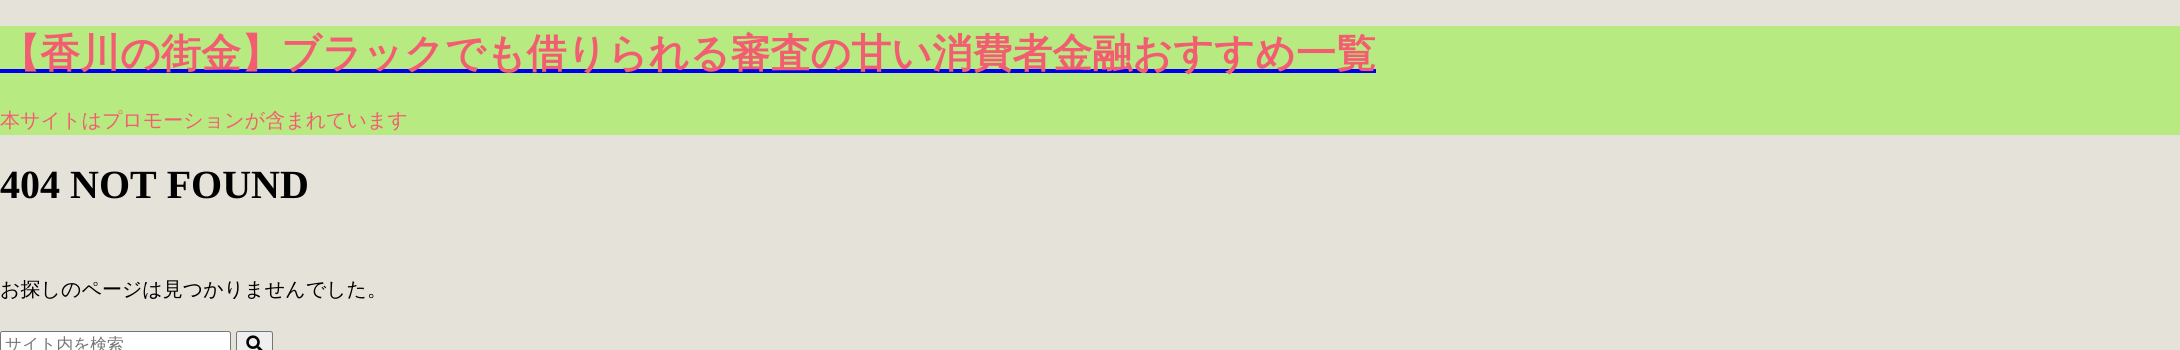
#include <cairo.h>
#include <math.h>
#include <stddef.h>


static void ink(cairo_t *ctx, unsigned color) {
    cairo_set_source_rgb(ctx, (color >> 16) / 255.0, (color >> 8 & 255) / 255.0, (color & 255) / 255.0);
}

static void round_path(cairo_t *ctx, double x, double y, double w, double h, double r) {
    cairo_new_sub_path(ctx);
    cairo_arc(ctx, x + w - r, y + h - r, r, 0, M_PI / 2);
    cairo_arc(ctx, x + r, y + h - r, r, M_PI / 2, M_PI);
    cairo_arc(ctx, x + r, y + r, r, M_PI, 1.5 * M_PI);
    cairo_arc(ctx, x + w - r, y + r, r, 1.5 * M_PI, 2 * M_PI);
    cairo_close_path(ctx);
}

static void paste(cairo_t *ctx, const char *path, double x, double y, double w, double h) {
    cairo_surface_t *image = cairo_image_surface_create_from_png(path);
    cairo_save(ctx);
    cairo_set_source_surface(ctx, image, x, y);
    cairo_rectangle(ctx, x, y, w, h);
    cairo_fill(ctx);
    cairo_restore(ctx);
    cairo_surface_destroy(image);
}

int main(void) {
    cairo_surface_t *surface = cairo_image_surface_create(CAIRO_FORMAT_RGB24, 2180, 350);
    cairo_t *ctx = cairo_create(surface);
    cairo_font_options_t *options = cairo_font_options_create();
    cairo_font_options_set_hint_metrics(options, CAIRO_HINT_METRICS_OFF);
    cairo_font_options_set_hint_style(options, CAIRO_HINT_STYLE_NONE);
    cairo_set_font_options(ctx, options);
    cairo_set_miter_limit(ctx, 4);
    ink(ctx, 0xE5E2DA);
    cairo_paint(ctx);
    ink(ctx, 0xB7EA81);
    cairo_rectangle(ctx, 0, 26, 2180, 109);
    cairo_fill(ctx);
    ink(ctx, 0x0000EE);
    cairo_rectangle(ctx, 0, 69, 1376, 4);
    cairo_fill(ctx);
    cairo_select_font_face(ctx, "WenQuanYi Zen Hei", CAIRO_FONT_SLANT_NORMAL, CAIRO_FONT_WEIGHT_BOLD);
    cairo_set_font_size(ctx, 40);
    ink(ctx, 0xF25D71);
    cairo_move_to(ctx, 0, 67);
    cairo_show_text(ctx, "【香川の街金】ブラックでも借りられる審査の甘い消費者金融おすすめ一覧");
    cairo_select_font_face(ctx, "WenQuanYi Zen Hei Medium", CAIRO_FONT_SLANT_NORMAL, CAIRO_FONT_WEIGHT_NORMAL);
    cairo_set_font_size(ctx, 20);
    cairo_move_to(ctx, 0, 127);
    cairo_show_text(ctx, "本サイトはプロモーションが含まれています");
    cairo_select_font_face(ctx, "Liberation Serif", CAIRO_FONT_SLANT_NORMAL, CAIRO_FONT_WEIGHT_BOLD);
    cairo_set_font_size(ctx, 40);
    ink(ctx, 0x000000);
    cairo_move_to(ctx, 0, 198);
    cairo_show_text(ctx, "404 NOT FOUND");
    cairo_select_font_face(ctx, "WenQuanYi Zen Hei Medium", CAIRO_FONT_SLANT_NORMAL, CAIRO_FONT_WEIGHT_NORMAL);
    cairo_set_font_size(ctx, 20);
    cairo_move_to(ctx, 0, 296);
    cairo_show_text(ctx, "お探しのページは見つかりませんでした。");
    ink(ctx, 0xFFFFFF);
    round_path(ctx, 0.5, 331.5, 230, 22, 2);
    cairo_fill_preserve(ctx);
    ink(ctx, 0x767676);
    cairo_set_line_width(ctx, 1);
    cairo_stroke(ctx);
    cairo_set_font_size(ctx, 16.75);
    ink(ctx, 0x757575);
    cairo_move_to(ctx, 5, 350);
    cairo_show_text(ctx, "サイト内を検索");
    ink(ctx, 0xEFEFEF);
    round_path(ctx, 236.5, 331.5, 36, 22, 2);
    cairo_fill_preserve(ctx);
    ink(ctx, 0x767676);
    cairo_stroke(ctx);
    paste(ctx, "media/1.png", 246, 335, 17, 15);
    cairo_surface_write_to_png(surface, "image.png");
    cairo_font_options_destroy(options);
    cairo_destroy(ctx);
    cairo_surface_destroy(surface);
    return 0;
}
